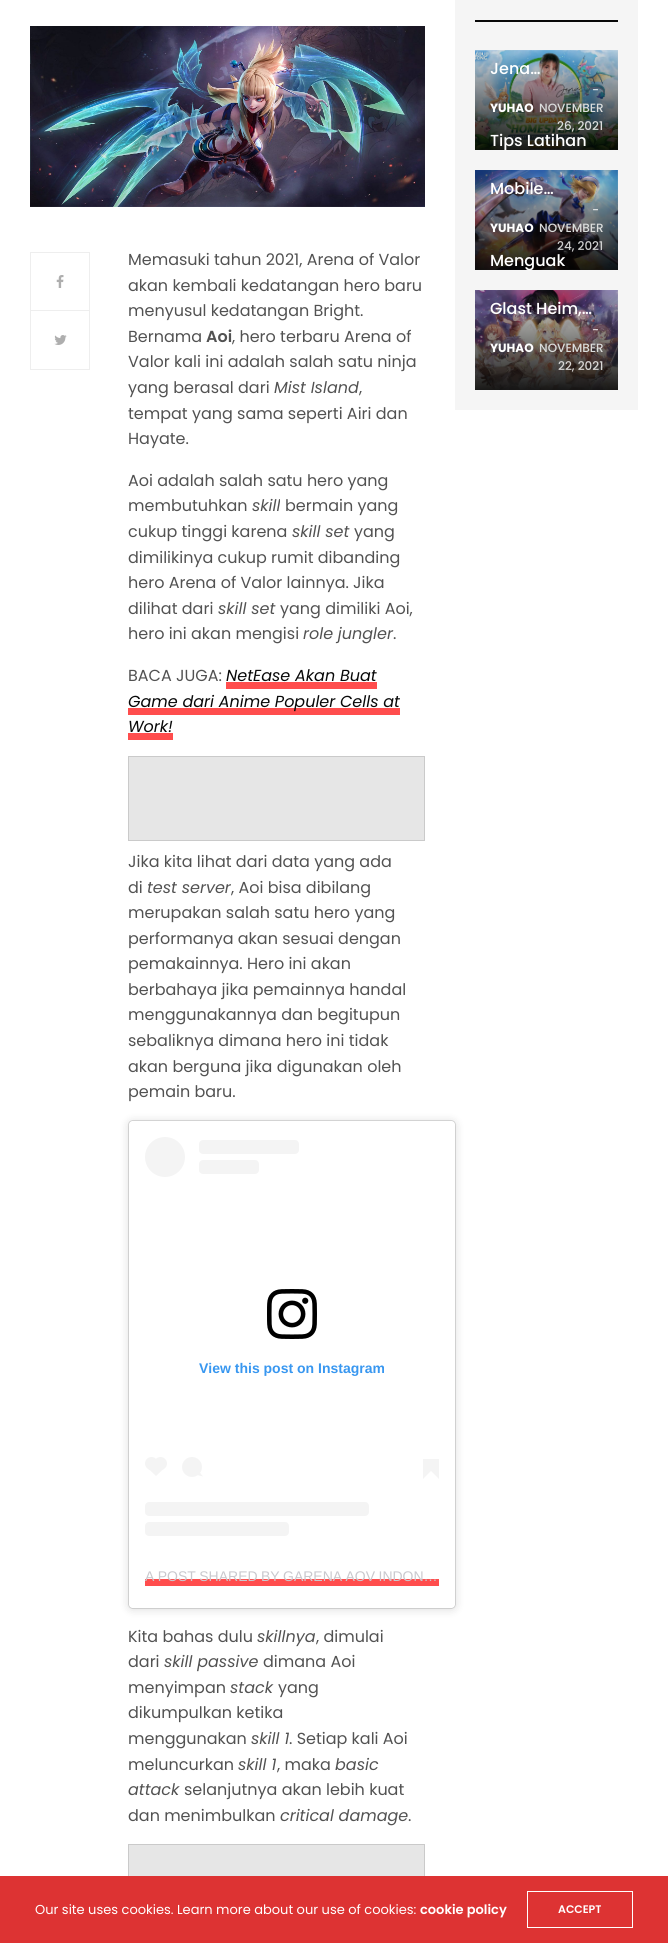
#include <cairo.h>
#include <math.h>
#include <stddef.h>

typedef struct { double x, y; const char *s; } line_t;
typedef struct { double x, y, w, h; unsigned color; } box_t;

static void ink(cairo_t *ctx, unsigned color) {
    cairo_set_source_rgb(ctx, (color >> 16) / 255.0, (color >> 8 & 255) / 255.0, (color & 255) / 255.0);
}

static void write_spaced(cairo_t *ctx, double x, double y, const char *s, double letter, double word) {
    cairo_move_to(ctx, x, y);
    while (*s) {
        char ch[5] = {0};
        int n = 0;
        do ch[n++] = *s++; while ((*s & 0xC0) == 0x80);
        cairo_show_text(ctx, ch);
        cairo_rel_move_to(ctx, letter + word * (*ch == ' '), 0);
    }
}

static void round_path(cairo_t *ctx, double x, double y, double w, double h, double r) {
    cairo_new_sub_path(ctx);
    cairo_arc(ctx, x + w - r, y + h - r, r, 0, M_PI / 2);
    cairo_arc(ctx, x + r, y + h - r, r, M_PI / 2, M_PI);
    cairo_arc(ctx, x + r, y + r, r, M_PI, 1.5 * M_PI);
    cairo_arc(ctx, x + w - r, y + r, r, 1.5 * M_PI, 2 * M_PI);
    cairo_close_path(ctx);
}

static void blur_box(cairo_t *ctx, double x, double y, double w, double h, double r, double blur, double alpha) {
    cairo_push_group_with_content(ctx, CAIRO_CONTENT_ALPHA);
    cairo_set_operator(ctx, CAIRO_OPERATOR_SOURCE);
    for (int i = 15; i >= -15 && fmin(w, h) + blur * i / 3 > 0; i -= 2) {
        double e = blur * i / 6;
        cairo_set_source_rgba(ctx, 0, 0, 0, alpha * erfc((i - 1) / 8.5) / 2);
        round_path(ctx, x - e, y - e, w + 2 * e, h + 2 * e, fmax(0, fmin(r + e + blur * .6, fmin(w, h) / 2 + e)));
        cairo_fill(ctx);
    }
    cairo_pattern_t *soft = cairo_pop_group(ctx);
    cairo_mask(ctx, soft);
    cairo_pattern_destroy(soft);
}

static void paste(cairo_t *ctx, const char *path, double x, double y, double w, double h) {
    cairo_surface_t *image = cairo_image_surface_create_from_png(path);
    cairo_save(ctx);
    cairo_set_source_surface(ctx, image, x, y);
    cairo_rectangle(ctx, x, y, w, h);
    cairo_fill(ctx);
    cairo_restore(ctx);
    cairo_surface_destroy(image);
}

int main(void) {
    cairo_surface_t *surface = cairo_image_surface_create(CAIRO_FORMAT_RGB24, 668, 1943);
    cairo_t *ctx = cairo_create(surface);
    cairo_font_options_t *options = cairo_font_options_create();
    cairo_font_options_set_hint_metrics(options, CAIRO_HINT_METRICS_OFF);
    cairo_font_options_set_hint_style(options, CAIRO_HINT_STYLE_NONE);
    cairo_set_font_options(ctx, options);
    cairo_set_miter_limit(ctx, 4);
    cairo_pattern_t *gradient;
    ink(ctx, 0xFFFFFF);
    cairo_paint(ctx);
    ink(ctx, 0xF5F5F5);
    cairo_rectangle(ctx, 455, 0, 183, 410);
    cairo_fill(ctx);
    ink(ctx, 0x080808);
    cairo_rectangle(ctx, 475, 20, 143, 2);
    cairo_fill(ctx);
    paste(ctx, "media/1.png", 475, 50, 143, 100);
    gradient = cairo_pattern_create_linear(547, 50, 547, 150);
    cairo_pattern_add_color_stop_rgba(gradient, 0, 0, 0, 0, 0.1);
    cairo_pattern_add_color_stop_rgba(gradient, 1, 0, 0, 0, 0.9);
    cairo_set_source(ctx, gradient);
    cairo_pattern_destroy(gradient);
    cairo_rectangle(ctx, 475, 50, 143, 100);
    cairo_fill(ctx);
    cairo_select_font_face(ctx, "Poppins Medium", CAIRO_FONT_SLANT_NORMAL, CAIRO_FONT_WEIGHT_NORMAL);
    cairo_set_font_size(ctx, 16);
    ink(ctx, 0xFFFFFF);
    cairo_move_to(ctx, 490, 74);
    cairo_show_text(ctx, "Jena…");
    cairo_select_font_face(ctx, "Poppins", CAIRO_FONT_SLANT_NORMAL, CAIRO_FONT_WEIGHT_BOLD);
    cairo_set_font_size(ctx, 12);
    cairo_move_to(ctx, 490, 112);
    cairo_show_text(ctx, "YUHAO");
    cairo_select_font_face(ctx, "Poppins Medium", CAIRO_FONT_SLANT_NORMAL, CAIRO_FONT_WEIGHT_NORMAL);
    ink(ctx, 0xDBE3E8);
    cairo_move_to(ctx, 592, 94);
    cairo_show_text(ctx, "-");
    ink(ctx, 0xDBDDDC);
    cairo_move_to(ctx, 539, 112);
    cairo_show_text(ctx, "NOVEMBER");
    cairo_move_to(ctx, 557, 130);
    cairo_show_text(ctx, "26, 2021");
    cairo_set_font_size(ctx, 16);
    ink(ctx, 0xFFFFFF);
    cairo_move_to(ctx, 490, 146);
    cairo_show_text(ctx, "Tips Latihan");
    paste(ctx, "media/2.png", 475, 170, 143, 100);
    gradient = cairo_pattern_create_linear(547, 170, 547, 270);
    cairo_pattern_add_color_stop_rgba(gradient, 0, 0, 0, 0, 0.1);
    cairo_pattern_add_color_stop_rgba(gradient, 1, 0, 0, 0, 0.9);
    cairo_set_source(ctx, gradient);
    cairo_pattern_destroy(gradient);
    cairo_rectangle(ctx, 475, 170, 143, 100);
    cairo_fill(ctx);
    ink(ctx, 0xFFFFFF);
    cairo_move_to(ctx, 490, 194);
    cairo_show_text(ctx, "Mobile…");
    cairo_select_font_face(ctx, "Poppins", CAIRO_FONT_SLANT_NORMAL, CAIRO_FONT_WEIGHT_BOLD);
    cairo_set_font_size(ctx, 12);
    cairo_move_to(ctx, 490, 232);
    cairo_show_text(ctx, "YUHAO");
    cairo_select_font_face(ctx, "Poppins Medium", CAIRO_FONT_SLANT_NORMAL, CAIRO_FONT_WEIGHT_NORMAL);
    ink(ctx, 0xE3E6E7);
    cairo_move_to(ctx, 592, 214);
    cairo_show_text(ctx, "-");
    ink(ctx, 0xDBDDDC);
    cairo_move_to(ctx, 539, 232);
    cairo_show_text(ctx, "NOVEMBER");
    ink(ctx, 0xD0D0D0);
    cairo_move_to(ctx, 557, 250);
    cairo_show_text(ctx, "24, 2021");
    cairo_set_font_size(ctx, 16);
    ink(ctx, 0xFFFFFF);
    cairo_move_to(ctx, 490, 266);
    cairo_show_text(ctx, "Menguak");
    paste(ctx, "media/3.png", 475, 290, 143, 100);
    gradient = cairo_pattern_create_linear(547, 290, 547, 390);
    cairo_pattern_add_color_stop_rgba(gradient, 0, 0, 0, 0, 0.1);
    cairo_pattern_add_color_stop_rgba(gradient, 1, 0, 0, 0, 0.9);
    cairo_set_source(ctx, gradient);
    cairo_pattern_destroy(gradient);
    cairo_rectangle(ctx, 475, 290, 143, 100);
    cairo_fill(ctx);
    ink(ctx, 0xFFFFFF);
    cairo_move_to(ctx, 490, 314);
    cairo_show_text(ctx, "Glast Heim,…");
    cairo_select_font_face(ctx, "Poppins", CAIRO_FONT_SLANT_NORMAL, CAIRO_FONT_WEIGHT_BOLD);
    cairo_set_font_size(ctx, 12);
    cairo_move_to(ctx, 490, 352);
    cairo_show_text(ctx, "YUHAO");
    cairo_select_font_face(ctx, "Poppins Medium", CAIRO_FONT_SLANT_NORMAL, CAIRO_FONT_WEIGHT_NORMAL);
    ink(ctx, 0xE1DADC);
    cairo_move_to(ctx, 592, 334);
    cairo_show_text(ctx, "-");
    ink(ctx, 0xDBDDDC);
    cairo_move_to(ctx, 539, 352);
    cairo_show_text(ctx, "NOVEMBER");
    ink(ctx, 0xD9D7D6);
    cairo_move_to(ctx, 558, 370);
    cairo_show_text(ctx, "22, 2021");
    paste(ctx, "media/4.png", 30, 26, 395, 181);
    cairo_rectangle(ctx, 30.5, 252.5, 59, 58);
    ink(ctx, 0xEEEEEE);
    cairo_set_line_width(ctx, 1);
    cairo_stroke(ctx);
    paste(ctx, "media/5.png", 56, 275, 8, 13);
    {
        static const box_t items[] = {
            {89, 311, 1, 59, 0xEEEEEE},
            {30, 369, 60, 1, 0xEEEEEE},
            {30, 311, 1, 59, 0xEEEEEE},
        };
        for (size_t i = 0; i < sizeof items / sizeof *items; i++) {
            ink(ctx, items[i].color);
            cairo_rectangle(ctx, items[i].x, items[i].y, items[i].w, items[i].h);
            cairo_fill(ctx);
        }
    }
    paste(ctx, "media/6.png", 54, 335, 13, 10);
    cairo_select_font_face(ctx, "Poppins", CAIRO_FONT_SLANT_NORMAL, CAIRO_FONT_WEIGHT_NORMAL);
    cairo_set_font_size(ctx, 16);
    ink(ctx, 0x525252);
    {
        static const line_t items[] = {
            {128, 265, "Memasuki tahun 2021, Arena of Valor"},
            {128, 291, "akan kembali kedatangan hero baru"},
            {128, 316, "menyusul kedatangan Bright."},
            {128, 342, "Bernama"},
        };
        for (size_t i = 0; i < sizeof items / sizeof *items; i++) {
            cairo_move_to(ctx, items[i].x, items[i].y);
            cairo_show_text(ctx, items[i].s);
        }
    }
    cairo_select_font_face(ctx, "Poppins SemiBold", CAIRO_FONT_SLANT_NORMAL, CAIRO_FONT_WEIGHT_NORMAL);
    cairo_move_to(ctx, 206, 342);
    cairo_show_text(ctx, "Aoi");
    cairo_select_font_face(ctx, "Poppins", CAIRO_FONT_SLANT_NORMAL, CAIRO_FONT_WEIGHT_NORMAL);
    {
        static const line_t items[] = {
            {232, 342, ", hero terbaru Arena of"},
            {128, 367, "Valor kali ini adalah salah satu ninja"},
            {128, 393, "yang berasal dari"},
        };
        for (size_t i = 0; i < sizeof items / sizeof *items; i++) {
            cairo_move_to(ctx, items[i].x, items[i].y);
            cairo_show_text(ctx, items[i].s);
        }
    }
    cairo_select_font_face(ctx, "Poppins", CAIRO_FONT_SLANT_ITALIC, CAIRO_FONT_WEIGHT_NORMAL);
    cairo_move_to(ctx, 274, 393);
    cairo_show_text(ctx, "Mist Island");
    cairo_select_font_face(ctx, "Poppins", CAIRO_FONT_SLANT_NORMAL, CAIRO_FONT_WEIGHT_NORMAL);
    {
        static const line_t items[] = {
            {359, 393, ","},
            {128, 419, "tempat yang sama seperti Airi dan"},
            {128, 444, "Hayate."},
            {128, 486, "Aoi adalah salah satu hero yang"},
            {128, 511, "membutuhkan"},
        };
        for (size_t i = 0; i < sizeof items / sizeof *items; i++) {
            cairo_move_to(ctx, items[i].x, items[i].y);
            cairo_show_text(ctx, items[i].s);
        }
    }
    cairo_select_font_face(ctx, "Poppins", CAIRO_FONT_SLANT_ITALIC, CAIRO_FONT_WEIGHT_NORMAL);
    cairo_move_to(ctx, 252, 511);
    cairo_show_text(ctx, "skill");
    cairo_select_font_face(ctx, "Poppins", CAIRO_FONT_SLANT_NORMAL, CAIRO_FONT_WEIGHT_NORMAL);
    cairo_move_to(ctx, 285, 511);
    cairo_show_text(ctx, "bermain yang");
    cairo_move_to(ctx, 128, 537);
    cairo_show_text(ctx, "cukup tinggi karena");
    cairo_select_font_face(ctx, "Poppins", CAIRO_FONT_SLANT_ITALIC, CAIRO_FONT_WEIGHT_NORMAL);
    cairo_move_to(ctx, 292, 537);
    cairo_show_text(ctx, "skill set");
    cairo_select_font_face(ctx, "Poppins", CAIRO_FONT_SLANT_NORMAL, CAIRO_FONT_WEIGHT_NORMAL);
    {
        static const line_t items[] = {
            {354, 537, "yang"},
            {128, 563, "dimilikinya cukup rumit dibanding"},
            {128, 588, "hero Arena of Valor lainnya. Jika"},
            {128, 614, "dilihat dari"},
        };
        for (size_t i = 0; i < sizeof items / sizeof *items; i++) {
            cairo_move_to(ctx, items[i].x, items[i].y);
            cairo_show_text(ctx, items[i].s);
        }
    }
    cairo_select_font_face(ctx, "Poppins", CAIRO_FONT_SLANT_ITALIC, CAIRO_FONT_WEIGHT_NORMAL);
    cairo_move_to(ctx, 218, 614);
    cairo_show_text(ctx, "skill set");
    cairo_select_font_face(ctx, "Poppins", CAIRO_FONT_SLANT_NORMAL, CAIRO_FONT_WEIGHT_NORMAL);
    cairo_move_to(ctx, 280, 614);
    cairo_show_text(ctx, "yang dimiliki Aoi,");
    cairo_move_to(ctx, 128, 639);
    cairo_show_text(ctx, "hero ini akan mengisi");
    cairo_select_font_face(ctx, "Poppins", CAIRO_FONT_SLANT_ITALIC, CAIRO_FONT_WEIGHT_NORMAL);
    cairo_move_to(ctx, 303, 639);
    cairo_show_text(ctx, "role jungler");
    cairo_select_font_face(ctx, "Poppins", CAIRO_FONT_SLANT_NORMAL, CAIRO_FONT_WEIGHT_NORMAL);
    cairo_move_to(ctx, 393, 639);
    cairo_show_text(ctx, ".");
    cairo_move_to(ctx, 128, 681);
    cairo_show_text(ctx, "BACA JUGA:");
    cairo_select_font_face(ctx, "Poppins", CAIRO_FONT_SLANT_ITALIC, CAIRO_FONT_WEIGHT_NORMAL);
    ink(ctx, 0x080808);
    cairo_move_to(ctx, 226, 681);
    cairo_show_text(ctx, "NetEase Akan Buat");
    ink(ctx, 0xFF4D4D);
    cairo_rectangle(ctx, 226, 682, 151, 7);
    cairo_fill(ctx);
    cairo_rectangle(ctx, 128, 708, 272, 7);
    cairo_fill(ctx);
    ink(ctx, 0x080808);
    cairo_move_to(ctx, 128, 707);
    cairo_show_text(ctx, "Game dari Anime Populer Cells at");
    cairo_move_to(ctx, 128, 732);
    cairo_show_text(ctx, "Work!");
    ink(ctx, 0xFF4D4D);
    cairo_rectangle(ctx, 128, 733, 45, 7);
    cairo_fill(ctx);
    ink(ctx, 0xE6E6E6);
    cairo_rectangle(ctx, 128.5, 756.5, 296, 84);
    cairo_fill_preserve(ctx);
    ink(ctx, 0xCACACA);
    cairo_stroke(ctx);
    cairo_select_font_face(ctx, "Poppins", CAIRO_FONT_SLANT_NORMAL, CAIRO_FONT_WEIGHT_NORMAL);
    ink(ctx, 0x525252);
    cairo_move_to(ctx, 128, 867);
    cairo_show_text(ctx, "Jika kita lihat dari data yang ada");
    cairo_move_to(ctx, 128, 893);
    cairo_show_text(ctx, "di");
    cairo_select_font_face(ctx, "Poppins", CAIRO_FONT_SLANT_ITALIC, CAIRO_FONT_WEIGHT_NORMAL);
    cairo_move_to(ctx, 147, 893);
    cairo_show_text(ctx, "test server");
    cairo_select_font_face(ctx, "Poppins", CAIRO_FONT_SLANT_NORMAL, CAIRO_FONT_WEIGHT_NORMAL);
    {
        static const line_t items[] = {
            {231, 893, ", Aoi bisa dibilang"},
            {128, 918, "merupakan salah satu hero yang"},
            {128, 944, "performanya akan sesuai dengan"},
            {128, 969, "pemakainnya. Hero ini akan"},
            {128, 995, "berbahaya jika pemainnya handal"},
            {128, 1020, "menggunakannya dan begitupun"},
            {128, 1046, "sebaliknya dimana hero ini tidak"},
            {128, 1072, "akan berguna jika digunakan oleh"},
            {128, 1097, "pemain baru."},
        };
        for (size_t i = 0; i < sizeof items / sizeof *items; i++) {
            cairo_move_to(ctx, items[i].x, items[i].y);
            cairo_show_text(ctx, items[i].s);
        }
    }
    ink(ctx, 0x000000);
    blur_box(ctx, 129, 1122, 326, 487, 3, 5, 0.15);
    blur_box(ctx, 129, 1121, 326, 487, 3, 0.5, 0.5);
    ink(ctx, 0xFFFFFF);
    round_path(ctx, 129, 1121, 326, 487, 3);
    cairo_fill(ctx);
    ink(ctx, 0xF4F4F4);
    cairo_arc(ctx, 165, 1157, 20, 0, 2 * M_PI);
    cairo_fill(ctx);
    round_path(ctx, 199, 1140, 100, 14, 4);
    cairo_fill(ctx);
    round_path(ctx, 199, 1160, 60, 14, 4);
    cairo_fill(ctx);
    paste(ctx, "media/7.png", 267, 1289, 50, 50);
    cairo_select_font_face(ctx, "Liberation Sans", CAIRO_FONT_SLANT_NORMAL, CAIRO_FONT_WEIGHT_BOLD);
    cairo_set_font_size(ctx, 14);
    ink(ctx, 0x3897F0);
    cairo_move_to(ctx, 199, 1373);
    cairo_show_text(ctx, "View this post on Instagram");
    ink(ctx, 0xF4F4F4);
    cairo_new_path(ctx);
    cairo_arc(ctx, 151.5, 1463.5, 6.5, 0, 2 * M_PI);
    cairo_fill(ctx);
    cairo_new_path(ctx);
    cairo_move_to(ctx, 147, 1467.5);
    cairo_line_to(ctx, 156, 1458.5);
    cairo_line_to(ctx, 165, 1467.5);
    cairo_line_to(ctx, 156, 1476);
    cairo_close_path(ctx);
    cairo_fill(ctx);
    cairo_arc(ctx, 160.5, 1463.5, 6.5, 0, 2 * M_PI);
    cairo_fill(ctx);
    cairo_arc(ctx, 192, 1467, 10, 0, 2 * M_PI);
    cairo_fill(ctx);
    cairo_new_path(ctx);
    cairo_move_to(ctx, 197, 1475);
    cairo_line_to(ctx, 199, 1471.5);
    cairo_line_to(ctx, 203, 1476.5);
    cairo_close_path(ctx);
    cairo_fill(ctx);
    cairo_rectangle(ctx, 423, 1459, 16, 12);
    cairo_fill(ctx);
    cairo_new_path(ctx);
    cairo_move_to(ctx, 423, 1471);
    cairo_line_to(ctx, 431, 1471);
    cairo_line_to(ctx, 423, 1479);
    cairo_close_path(ctx);
    cairo_fill(ctx);
    cairo_new_path(ctx);
    cairo_move_to(ctx, 431, 1471);
    cairo_line_to(ctx, 439, 1471);
    cairo_line_to(ctx, 439, 1479);
    cairo_close_path(ctx);
    cairo_fill(ctx);
    round_path(ctx, 145, 1502, 224, 14, 4);
    cairo_fill(ctx);
    round_path(ctx, 145, 1522, 144, 14, 4);
    cairo_fill(ctx);
    ink(ctx, 0xFF4D4D);
    cairo_rectangle(ctx, 145, 1579, 294, 7);
    cairo_fill(ctx);
    cairo_select_font_face(ctx, "Liberation Sans", CAIRO_FONT_SLANT_NORMAL, CAIRO_FONT_WEIGHT_NORMAL);
    ink(ctx, 0xC9C8CD);
    write_spaced(ctx, 145, 1581, "A POST SHARED BY GARENA AOV INDON…", 0, -0.5);
    cairo_select_font_face(ctx, "Poppins", CAIRO_FONT_SLANT_NORMAL, CAIRO_FONT_WEIGHT_NORMAL);
    cairo_set_font_size(ctx, 16);
    ink(ctx, 0x525252);
    cairo_move_to(ctx, 128, 1642);
    cairo_show_text(ctx, "Kita bahas dulu");
    cairo_select_font_face(ctx, "Poppins", CAIRO_FONT_SLANT_ITALIC, CAIRO_FONT_WEIGHT_NORMAL);
    cairo_move_to(ctx, 257, 1642);
    cairo_show_text(ctx, "skillnya");
    cairo_select_font_face(ctx, "Poppins", CAIRO_FONT_SLANT_NORMAL, CAIRO_FONT_WEIGHT_NORMAL);
    cairo_move_to(ctx, 316, 1642);
    cairo_show_text(ctx, ", dimulai");
    cairo_move_to(ctx, 128, 1667);
    cairo_show_text(ctx, "dari");
    cairo_select_font_face(ctx, "Poppins", CAIRO_FONT_SLANT_ITALIC, CAIRO_FONT_WEIGHT_NORMAL);
    cairo_move_to(ctx, 164, 1667);
    cairo_show_text(ctx, "skill passive");
    cairo_select_font_face(ctx, "Poppins", CAIRO_FONT_SLANT_NORMAL, CAIRO_FONT_WEIGHT_NORMAL);
    cairo_move_to(ctx, 263, 1667);
    cairo_show_text(ctx, "dimana Aoi");
    cairo_move_to(ctx, 128, 1693);
    cairo_show_text(ctx, "menyimpan");
    cairo_select_font_face(ctx, "Poppins", CAIRO_FONT_SLANT_ITALIC, CAIRO_FONT_WEIGHT_NORMAL);
    cairo_move_to(ctx, 230, 1693);
    cairo_show_text(ctx, "stack");
    cairo_select_font_face(ctx, "Poppins", CAIRO_FONT_SLANT_NORMAL, CAIRO_FONT_WEIGHT_NORMAL);
    {
        static const line_t items[] = {
            {278, 1693, "yang"},
            {128, 1718, "dikumpulkan ketika"},
            {128, 1744, "menggunakan"},
        };
        for (size_t i = 0; i < sizeof items / sizeof *items; i++) {
            cairo_move_to(ctx, items[i].x, items[i].y);
            cairo_show_text(ctx, items[i].s);
        }
    }
    cairo_select_font_face(ctx, "Poppins", CAIRO_FONT_SLANT_ITALIC, CAIRO_FONT_WEIGHT_NORMAL);
    cairo_move_to(ctx, 251, 1744);
    cairo_show_text(ctx, "skill 1");
    cairo_select_font_face(ctx, "Poppins", CAIRO_FONT_SLANT_NORMAL, CAIRO_FONT_WEIGHT_NORMAL);
    cairo_move_to(ctx, 289, 1744);
    cairo_show_text(ctx, ". Setiap kali Aoi");
    cairo_move_to(ctx, 128, 1770);
    cairo_show_text(ctx, "meluncurkan");
    cairo_select_font_face(ctx, "Poppins", CAIRO_FONT_SLANT_ITALIC, CAIRO_FONT_WEIGHT_NORMAL);
    cairo_move_to(ctx, 238, 1770);
    cairo_show_text(ctx, "skill 1");
    cairo_select_font_face(ctx, "Poppins", CAIRO_FONT_SLANT_NORMAL, CAIRO_FONT_WEIGHT_NORMAL);
    cairo_move_to(ctx, 277, 1770);
    cairo_show_text(ctx, ", maka");
    cairo_select_font_face(ctx, "Poppins", CAIRO_FONT_SLANT_ITALIC, CAIRO_FONT_WEIGHT_NORMAL);
    cairo_move_to(ctx, 335, 1770);
    cairo_show_text(ctx, "basic");
    cairo_move_to(ctx, 128, 1795);
    cairo_show_text(ctx, "attack");
    cairo_select_font_face(ctx, "Poppins", CAIRO_FONT_SLANT_NORMAL, CAIRO_FONT_WEIGHT_NORMAL);
    cairo_move_to(ctx, 184, 1795);
    cairo_show_text(ctx, "selanjutnya akan lebih kuat");
    cairo_move_to(ctx, 128, 1821);
    cairo_show_text(ctx, "dan menimbulkan");
    cairo_select_font_face(ctx, "Poppins", CAIRO_FONT_SLANT_ITALIC, CAIRO_FONT_WEIGHT_NORMAL);
    cairo_move_to(ctx, 280, 1821);
    cairo_show_text(ctx, "critical damage");
    cairo_select_font_face(ctx, "Poppins", CAIRO_FONT_SLANT_NORMAL, CAIRO_FONT_WEIGHT_NORMAL);
    cairo_move_to(ctx, 408, 1821);
    cairo_show_text(ctx, ".");
    ink(ctx, 0xE6E6E6);
    cairo_rectangle(ctx, 129, 1845, 295, 31);
    cairo_fill(ctx);
    cairo_rectangle(ctx, 128.5, 1844.5, 296, 85);
    ink(ctx, 0xCACACA);
    cairo_stroke(ctx);
    ink(ctx, 0xDD3333);
    cairo_rectangle(ctx, 0, 1876, 668, 67);
    cairo_fill(ctx);
    cairo_set_font_size(ctx, 13);
    ink(ctx, 0xFFFFFF);
    cairo_move_to(ctx, 35, 1914);
    cairo_show_text(ctx, "Our site uses cookies. Learn more about our use of cookies:");
    cairo_select_font_face(ctx, "Poppins SemiBold", CAIRO_FONT_SLANT_NORMAL, CAIRO_FONT_WEIGHT_NORMAL);
    cairo_move_to(ctx, 420, 1914);
    cairo_show_text(ctx, "cookie policy");
    cairo_rectangle(ctx, 527.5, 1891.5, 105, 36);
    cairo_stroke(ctx);
    cairo_set_font_size(ctx, 11);
    cairo_move_to(ctx, 558, 1913);
    cairo_show_text(ctx, "ACCEPT");
    cairo_surface_write_to_png(surface, "image.png");
    cairo_font_options_destroy(options);
    cairo_destroy(ctx);
    cairo_surface_destroy(surface);
    return 0;
}
